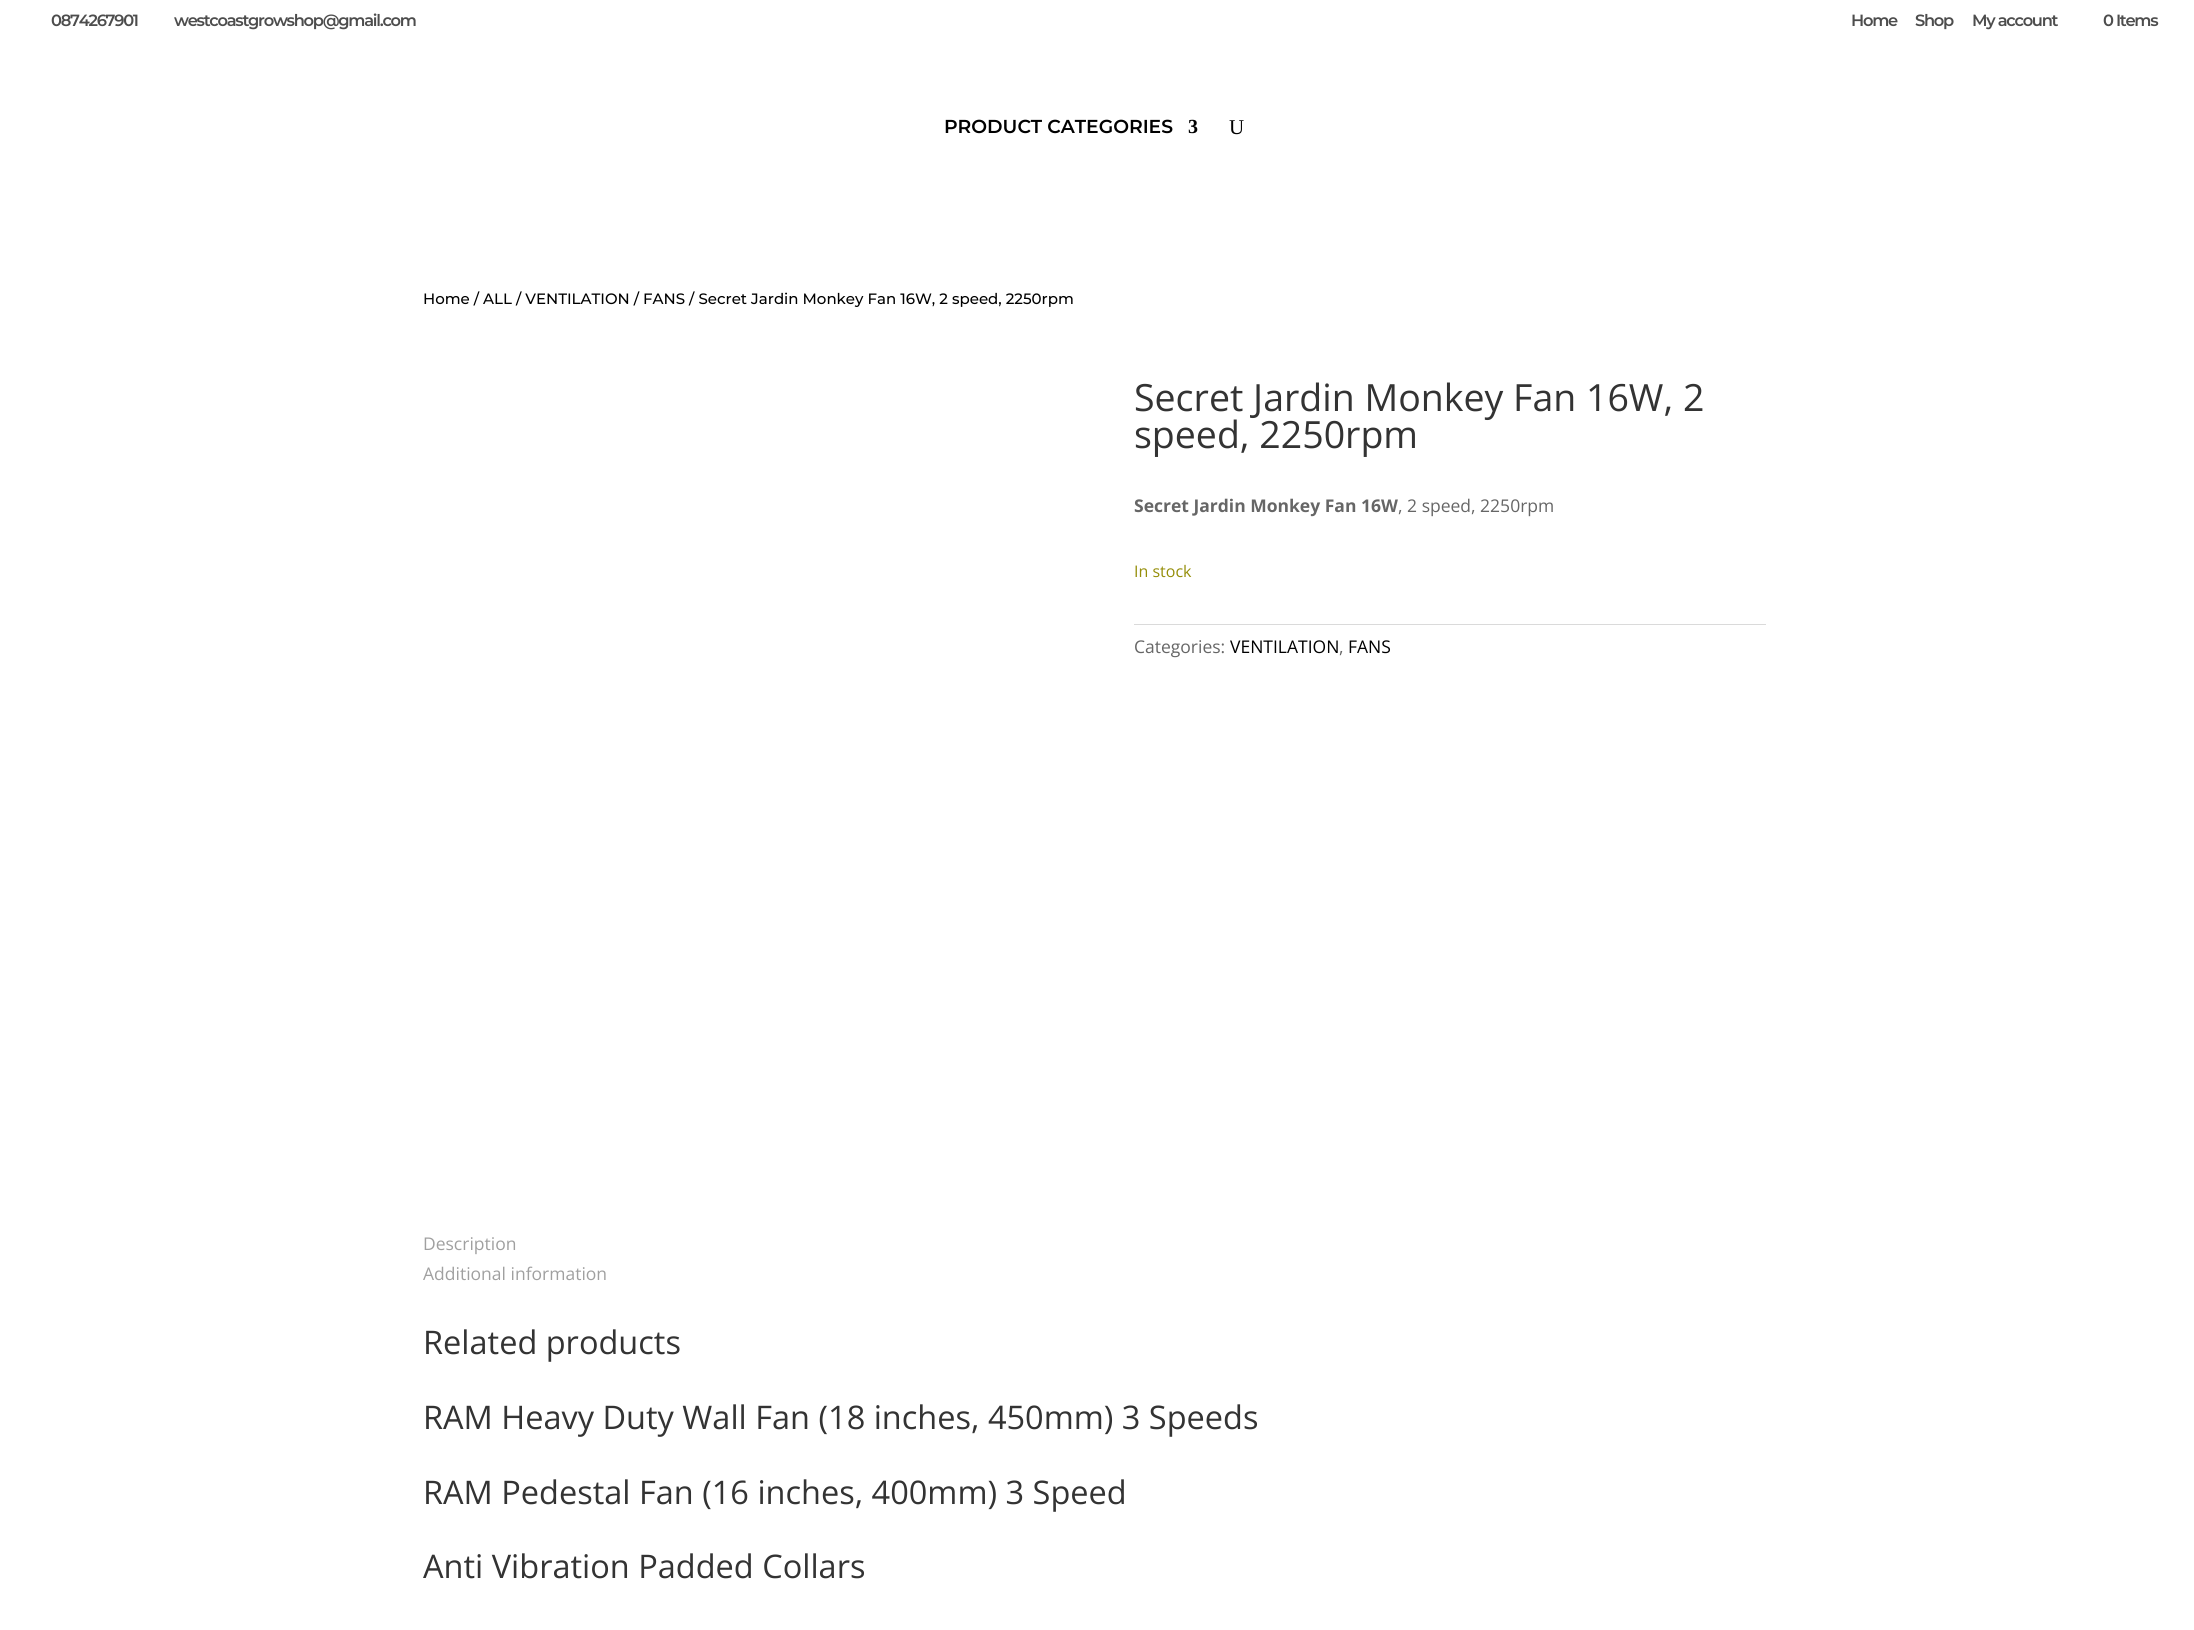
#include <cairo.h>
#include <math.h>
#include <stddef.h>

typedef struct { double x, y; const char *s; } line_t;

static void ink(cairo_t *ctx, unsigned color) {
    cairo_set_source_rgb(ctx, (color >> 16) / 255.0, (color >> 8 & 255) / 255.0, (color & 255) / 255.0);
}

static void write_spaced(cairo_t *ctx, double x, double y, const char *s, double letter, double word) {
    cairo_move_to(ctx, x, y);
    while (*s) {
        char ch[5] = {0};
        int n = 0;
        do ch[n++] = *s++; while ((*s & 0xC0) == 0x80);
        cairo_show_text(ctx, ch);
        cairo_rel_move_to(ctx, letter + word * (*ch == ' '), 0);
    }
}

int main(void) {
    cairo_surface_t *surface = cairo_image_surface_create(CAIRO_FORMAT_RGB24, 2194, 1630);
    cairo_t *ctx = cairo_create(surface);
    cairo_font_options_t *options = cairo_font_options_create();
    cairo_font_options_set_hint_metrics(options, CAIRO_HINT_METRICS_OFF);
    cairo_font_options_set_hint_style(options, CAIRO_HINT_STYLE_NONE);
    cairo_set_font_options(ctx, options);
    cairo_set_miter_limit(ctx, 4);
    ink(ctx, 0xFFFFFF);
    cairo_paint(ctx);
    cairo_select_font_face(ctx, "Montserrat SemiBold", CAIRO_FONT_SLANT_NORMAL, CAIRO_FONT_WEIGHT_NORMAL);
    cairo_set_font_size(ctx, 16.25);
    ink(ctx, 0x4D4D4D);
    {
        static const line_t items[] = {
            {51, 26, "0874267901"},
            {174, 26, "westcoastgrowshop@gmail.com"},
            {1851, 26, "Home"},
            {1915, 26, "Shop"},
            {1972, 26, "My account"},
            {2103, 26, "0 Items"},
        };
        for (size_t i = 0; i < sizeof items / sizeof *items; i++) {
            write_spaced(ctx, items[i].x, items[i].y, items[i].s, -1.25, 0);
        }
    }
    cairo_set_font_size(ctx, 18.75);
    ink(ctx, 0x000000);
    cairo_move_to(ctx, 944, 133);
    cairo_show_text(ctx, "PRODUCT CATEGORIES");
    cairo_select_font_face(ctx, "Liberation Serif", CAIRO_FONT_SLANT_NORMAL, CAIRO_FONT_WEIGHT_BOLD);
    cairo_set_font_size(ctx, 20);
    cairo_move_to(ctx, 1188, 133);
    cairo_show_text(ctx, "3");
    cairo_select_font_face(ctx, "Liberation Serif", CAIRO_FONT_SLANT_NORMAL, CAIRO_FONT_WEIGHT_NORMAL);
    cairo_set_font_size(ctx, 21);
    cairo_move_to(ctx, 1229, 134);
    cairo_show_text(ctx, "U");
    cairo_select_font_face(ctx, "Montserrat Medium", CAIRO_FONT_SLANT_NORMAL, CAIRO_FONT_WEIGHT_NORMAL);
    cairo_set_font_size(ctx, 15);
    cairo_move_to(ctx, 423, 304);
    cairo_show_text(ctx, "Home / ALL / VENTILATION / FANS / Secret Jardin Monkey Fan 16W, 2 speed, 2250rpm");
    cairo_select_font_face(ctx, "Open Sans", CAIRO_FONT_SLANT_NORMAL, CAIRO_FONT_WEIGHT_NORMAL);
    cairo_set_font_size(ctx, 37.5);
    ink(ctx, 0x333333);
    cairo_move_to(ctx, 1134, 411);
    cairo_show_text(ctx, "Secret Jardin Monkey Fan 16W, 2");
    cairo_move_to(ctx, 1134, 448);
    cairo_show_text(ctx, "speed, 2250rpm");
    cairo_select_font_face(ctx, "Open Sans", CAIRO_FONT_SLANT_NORMAL, CAIRO_FONT_WEIGHT_BOLD);
    cairo_set_font_size(ctx, 17.5);
    ink(ctx, 0x666666);
    cairo_move_to(ctx, 1134, 512);
    cairo_show_text(ctx, "Secret Jardin Monkey Fan 16W");
    cairo_select_font_face(ctx, "Open Sans", CAIRO_FONT_SLANT_NORMAL, CAIRO_FONT_WEIGHT_NORMAL);
    cairo_move_to(ctx, 1398, 512);
    cairo_show_text(ctx, ", 2 speed, 2250rpm");
    cairo_set_font_size(ctx, 16);
    ink(ctx, 0x958E09);
    cairo_move_to(ctx, 1134, 577);
    cairo_show_text(ctx, "In stock");
    ink(ctx, 0xDADADA);
    cairo_rectangle(ctx, 1134, 624, 632, 1);
    cairo_fill(ctx);
    cairo_set_font_size(ctx, 17.5);
    ink(ctx, 0x666666);
    cairo_move_to(ctx, 1134, 653);
    cairo_show_text(ctx, "Categories:");
    ink(ctx, 0x000000);
    cairo_move_to(ctx, 1230, 653);
    cairo_show_text(ctx, "VENTILATION");
    ink(ctx, 0x666666);
    cairo_move_to(ctx, 1339, 653);
    cairo_show_text(ctx, ",");
    ink(ctx, 0x000000);
    cairo_move_to(ctx, 1348, 653);
    cairo_show_text(ctx, "FANS");
    ink(ctx, 0xA0A0A0);
    cairo_move_to(ctx, 423, 1250);
    cairo_show_text(ctx, "Description");
    cairo_move_to(ctx, 423, 1280);
    cairo_show_text(ctx, "Additional information");
    cairo_set_font_size(ctx, 32.5);
    ink(ctx, 0x333333);
    {
        static const line_t items[] = {
            {423, 1354, "Related products"},
            {423, 1429, "RAM Heavy Duty Wall Fan (18 inches, 450mm) 3 Speeds"},
            {423, 1504, "RAM Pedestal Fan (16 inches, 400mm) 3 Speed"},
            {423, 1578, "Anti Vibration Padded Collars"},
        };
        for (size_t i = 0; i < sizeof items / sizeof *items; i++) {
            cairo_move_to(ctx, items[i].x, items[i].y);
            cairo_show_text(ctx, items[i].s);
        }
    }
    cairo_surface_write_to_png(surface, "image.png");
    cairo_font_options_destroy(options);
    cairo_destroy(ctx);
    cairo_surface_destroy(surface);
    return 0;
}
